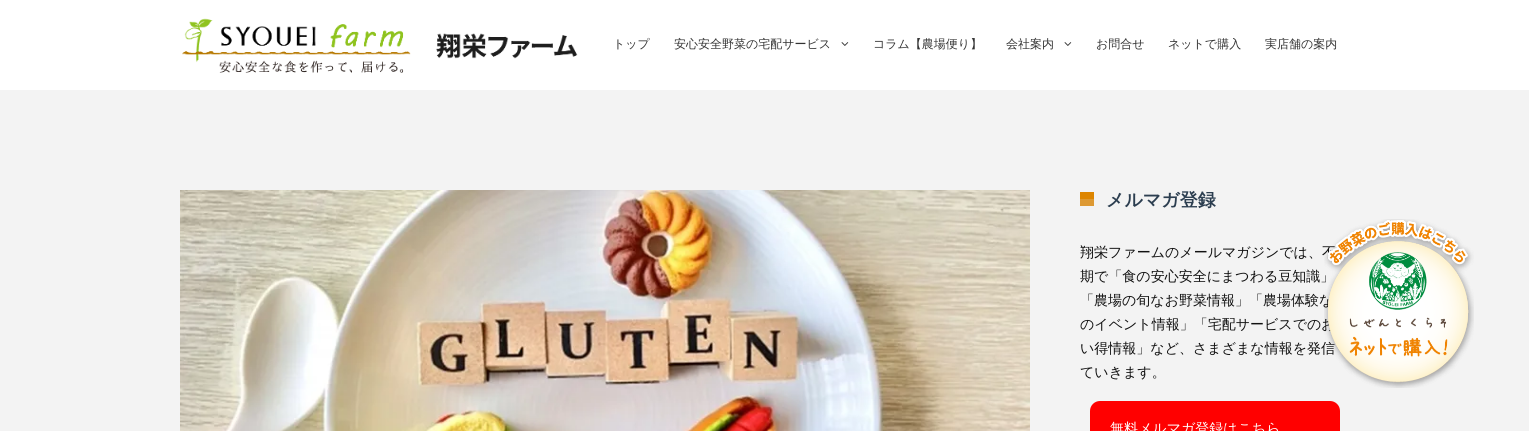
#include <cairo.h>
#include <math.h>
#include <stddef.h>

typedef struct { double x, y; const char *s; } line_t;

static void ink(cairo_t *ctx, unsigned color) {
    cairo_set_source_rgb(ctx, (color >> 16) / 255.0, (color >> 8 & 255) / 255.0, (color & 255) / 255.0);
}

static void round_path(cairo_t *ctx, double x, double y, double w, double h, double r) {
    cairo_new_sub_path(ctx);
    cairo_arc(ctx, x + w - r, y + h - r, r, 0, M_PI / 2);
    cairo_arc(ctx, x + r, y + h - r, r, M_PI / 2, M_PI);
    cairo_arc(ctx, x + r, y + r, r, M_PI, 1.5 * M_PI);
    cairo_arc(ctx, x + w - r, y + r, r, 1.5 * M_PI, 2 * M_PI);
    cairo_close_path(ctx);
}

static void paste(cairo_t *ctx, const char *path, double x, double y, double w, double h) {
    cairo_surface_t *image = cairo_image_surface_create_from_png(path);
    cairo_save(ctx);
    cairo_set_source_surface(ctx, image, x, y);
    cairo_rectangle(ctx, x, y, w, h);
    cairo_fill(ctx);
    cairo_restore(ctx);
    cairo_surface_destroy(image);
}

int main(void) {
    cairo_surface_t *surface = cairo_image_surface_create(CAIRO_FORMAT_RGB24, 1529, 431);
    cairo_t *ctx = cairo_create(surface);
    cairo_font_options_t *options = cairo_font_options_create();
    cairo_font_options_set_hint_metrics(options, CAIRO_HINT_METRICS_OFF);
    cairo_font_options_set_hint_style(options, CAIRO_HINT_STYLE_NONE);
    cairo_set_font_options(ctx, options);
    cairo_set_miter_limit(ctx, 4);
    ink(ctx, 0xFFFFFF);
    cairo_paint(ctx);
    paste(ctx, "media/1.png", 182, 18, 396, 55);
    cairo_select_font_face(ctx, "WenQuanYi Zen Hei Medium", CAIRO_FONT_SLANT_NORMAL, CAIRO_FONT_WEIGHT_NORMAL);
    cairo_set_font_size(ctx, 12);
    ink(ctx, 0x333333);
    cairo_move_to(ctx, 613, 48);
    cairo_show_text(ctx, "トップ");
    cairo_move_to(ctx, 674, 48);
    cairo_show_text(ctx, "安心安全野菜の宅配サービス");
    paste(ctx, "media/2.png", 841, 42, 8, 4);
    cairo_move_to(ctx, 873, 48);
    cairo_show_text(ctx, "コラム【農場便り】");
    cairo_move_to(ctx, 1006, 48);
    cairo_show_text(ctx, "会社案内");
    paste(ctx, "media/2.png", 1064, 42, 8, 4);
    {
        static const line_t items[] = {
            {1096, 48, "お問合せ"},
            {1168, 48, "ネットで購入"},
            {1265, 48, "実店舗の案内"},
        };
        for (size_t i = 0; i < sizeof items / sizeof *items; i++) {
            cairo_move_to(ctx, items[i].x, items[i].y);
            cairo_show_text(ctx, items[i].s);
        }
    }
    ink(ctx, 0xF3F3F3);
    cairo_rectangle(ctx, 0, 90, 1529, 341);
    cairo_fill(ctx);
    paste(ctx, "media/3.png", 180, 190, 850, 241);
    ink(ctx, 0xDD8500);
    cairo_rectangle(ctx, 1080, 192, 14, 7);
    cairo_fill(ctx);
    ink(ctx, 0xDD9933);
    cairo_rectangle(ctx, 1080, 199, 14, 7);
    cairo_fill(ctx);
    cairo_select_font_face(ctx, "WenQuanYi Zen Hei", CAIRO_FONT_SLANT_NORMAL, CAIRO_FONT_WEIGHT_BOLD);
    cairo_set_font_size(ctx, 18);
    ink(ctx, 0x2C3E50);
    cairo_move_to(ctx, 1106, 206);
    cairo_show_text(ctx, "メルマガ登録");
    cairo_select_font_face(ctx, "WenQuanYi Zen Hei Medium", CAIRO_FONT_SLANT_NORMAL, CAIRO_FONT_WEIGHT_NORMAL);
    cairo_set_font_size(ctx, 14);
    ink(ctx, 0x111111);
    {
        static const line_t items[] = {
            {1080, 257, "翔栄ファームのメールマガジンでは、不"},
            {1080, 281, "期で「食の安心安全にまつわる豆知識」"},
            {1080, 305, "「農場の旬なお野菜情報」「農場体験な"},
            {1080, 329, "のイベント情報」「宅配サービスでのお"},
            {1080, 353, "い得情報」など、さまざまな情報を発信"},
            {1080, 377, "ていきます。"},
        };
        for (size_t i = 0; i < sizeof items / sizeof *items; i++) {
            cairo_move_to(ctx, items[i].x, items[i].y);
            cairo_show_text(ctx, items[i].s);
        }
    }
    ink(ctx, 0xFF0000);
    round_path(ctx, 1090, 401, 250, 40, 10);
    cairo_fill(ctx);
    ink(ctx, 0xFFFFFF);
    cairo_move_to(ctx, 1110, 433);
    cairo_show_text(ctx, "無料メルマガ登録はこちら");
    paste(ctx, "media/4.png", 1324, 219, 150, 169);
    paste(ctx, "media/5.png", 1324, 219, 150, 169);
    cairo_surface_write_to_png(surface, "image.png");
    cairo_font_options_destroy(options);
    cairo_destroy(ctx);
    cairo_surface_destroy(surface);
    return 0;
}
